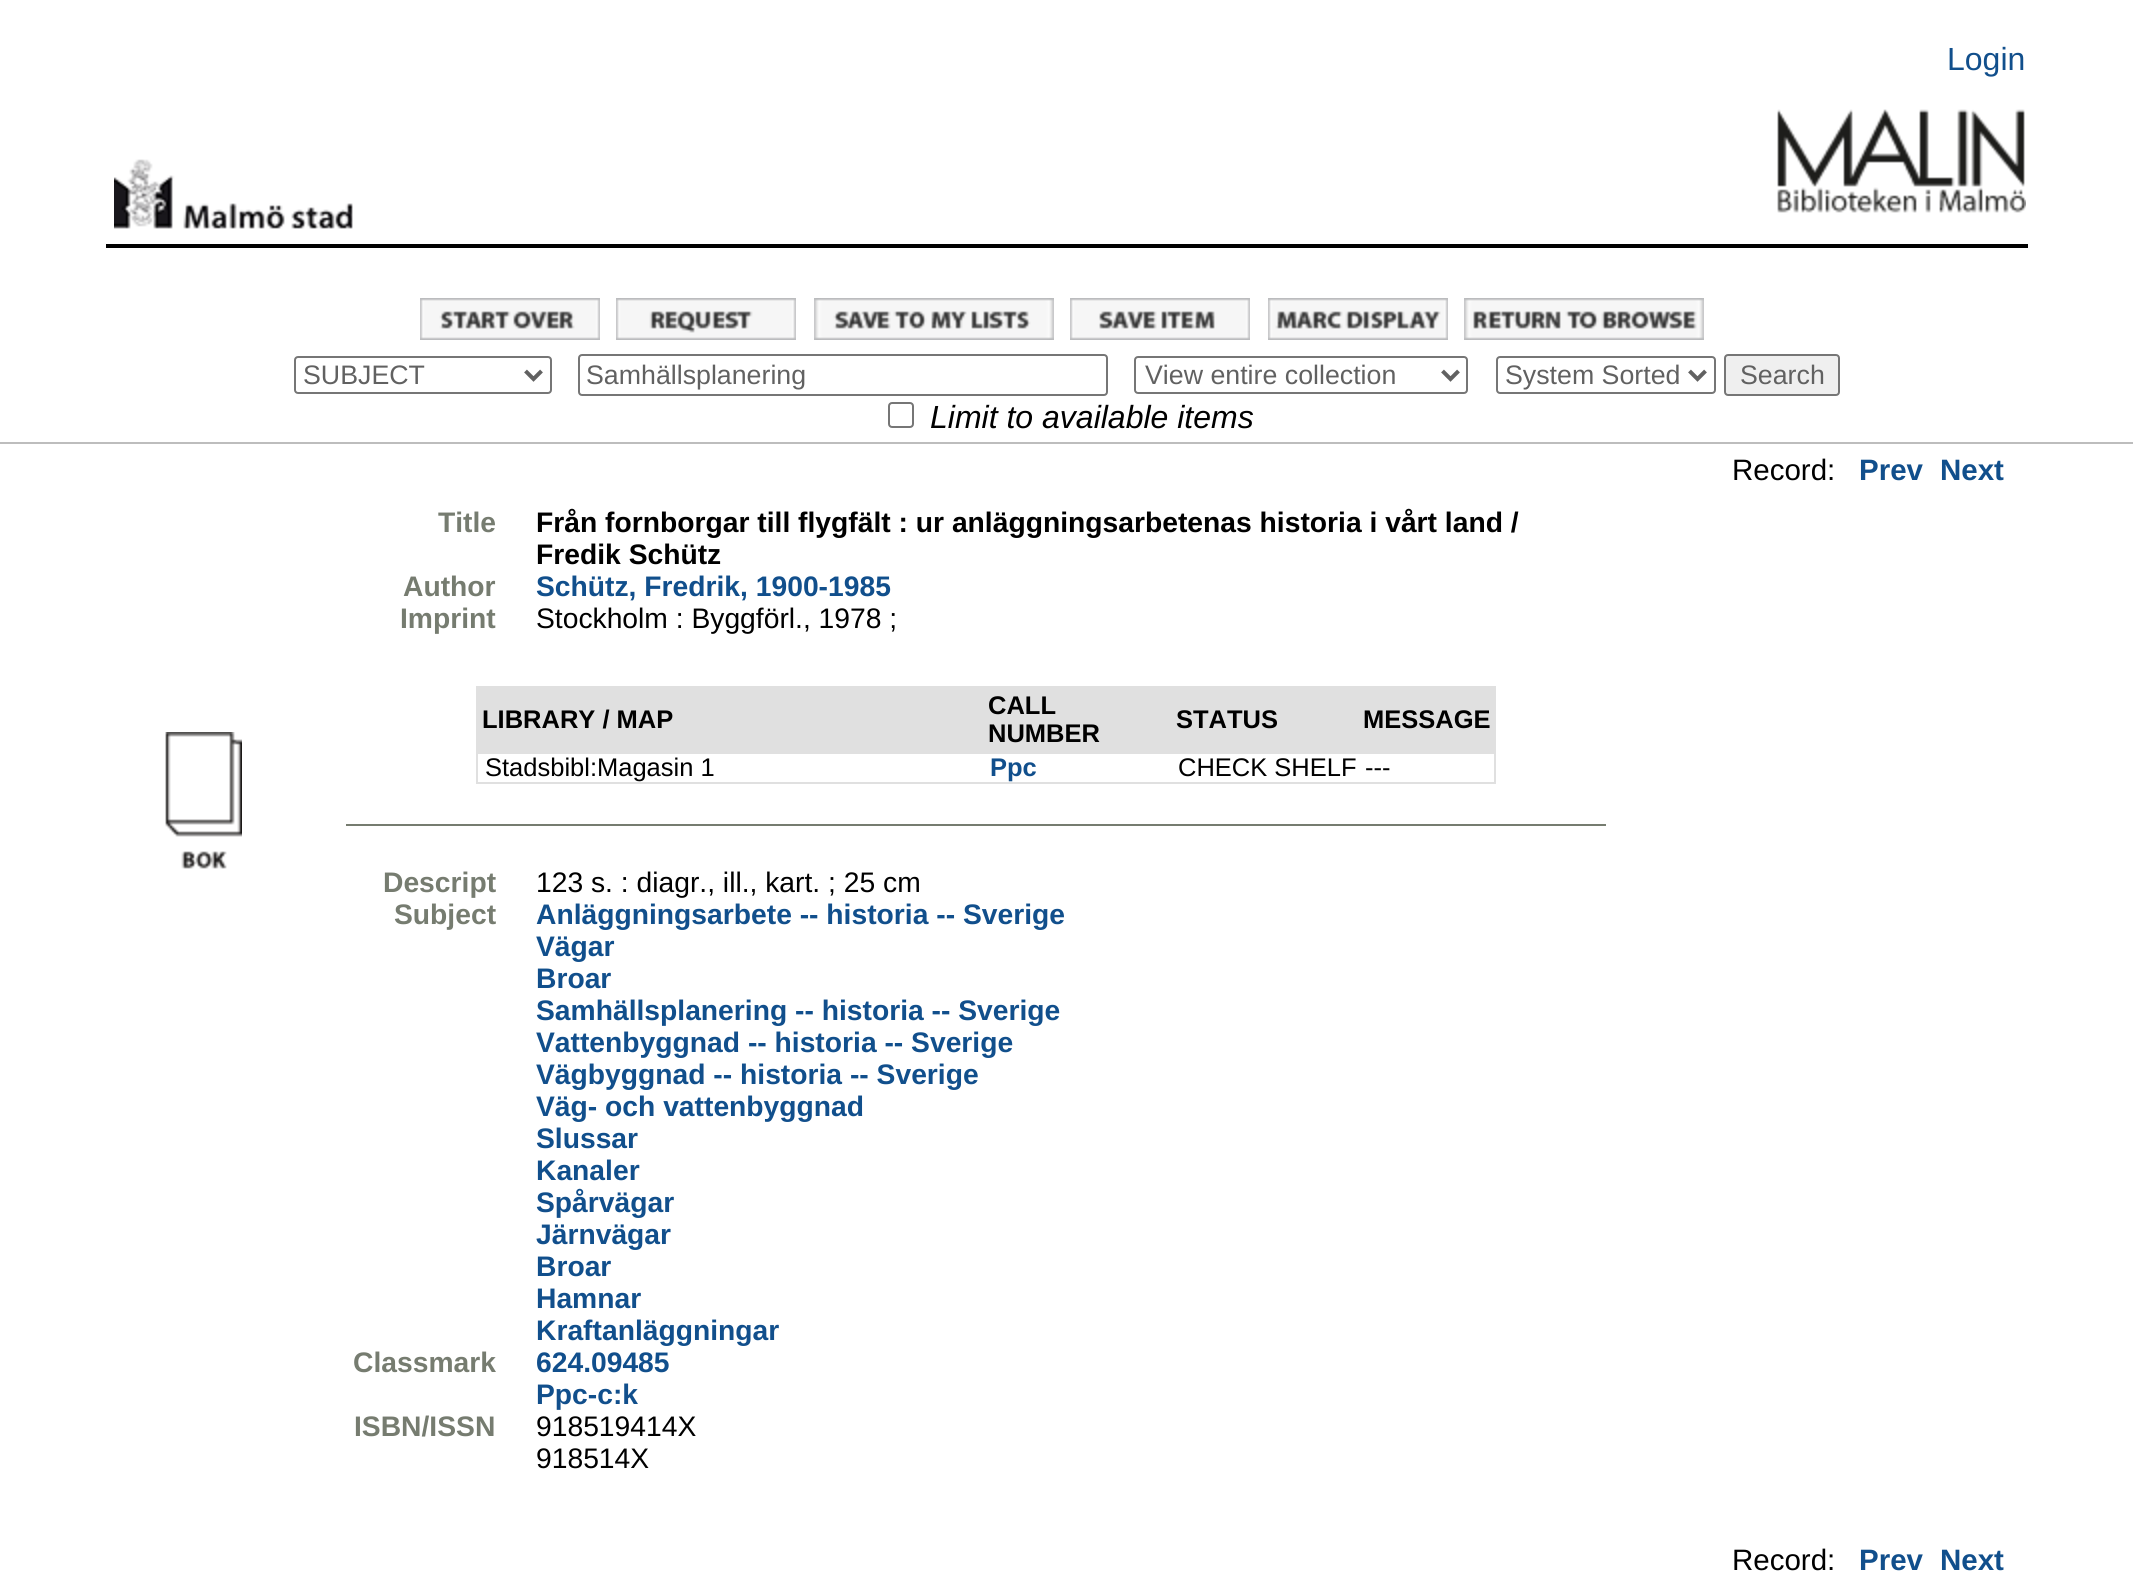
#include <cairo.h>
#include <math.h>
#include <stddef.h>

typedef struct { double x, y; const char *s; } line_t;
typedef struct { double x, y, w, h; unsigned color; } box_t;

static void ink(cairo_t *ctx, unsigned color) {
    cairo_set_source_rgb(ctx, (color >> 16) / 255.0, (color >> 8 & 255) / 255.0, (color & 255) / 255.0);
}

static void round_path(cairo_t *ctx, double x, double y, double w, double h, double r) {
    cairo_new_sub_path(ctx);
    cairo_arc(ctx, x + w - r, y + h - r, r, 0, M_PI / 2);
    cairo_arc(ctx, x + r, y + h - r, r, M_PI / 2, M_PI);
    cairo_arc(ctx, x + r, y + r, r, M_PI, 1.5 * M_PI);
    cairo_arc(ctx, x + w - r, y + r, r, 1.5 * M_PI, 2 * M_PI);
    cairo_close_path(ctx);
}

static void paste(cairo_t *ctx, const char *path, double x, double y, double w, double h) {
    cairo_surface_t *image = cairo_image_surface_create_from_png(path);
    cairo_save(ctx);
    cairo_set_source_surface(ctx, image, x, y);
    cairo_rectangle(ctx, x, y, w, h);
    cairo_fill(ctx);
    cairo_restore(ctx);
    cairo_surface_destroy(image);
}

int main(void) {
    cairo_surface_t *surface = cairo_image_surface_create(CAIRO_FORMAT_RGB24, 2133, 1574);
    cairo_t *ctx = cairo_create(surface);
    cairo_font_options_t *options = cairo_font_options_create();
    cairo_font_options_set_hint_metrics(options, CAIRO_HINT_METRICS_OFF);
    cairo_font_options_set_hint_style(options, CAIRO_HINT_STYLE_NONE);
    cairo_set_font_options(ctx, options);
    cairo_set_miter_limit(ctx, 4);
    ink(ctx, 0xFFFFFF);
    cairo_paint(ctx);
    cairo_select_font_face(ctx, "Liberation Sans", CAIRO_FONT_SLANT_NORMAL, CAIRO_FONT_WEIGHT_NORMAL);
    cairo_set_font_size(ctx, 32);
    ink(ctx, 0x114F8C);
    cairo_move_to(ctx, 1947, 70);
    cairo_show_text(ctx, "Login");
    paste(ctx, "media/1.png", 114, 159, 239, 70);
    paste(ctx, "media/2.png", 1777, 109, 249, 104);
    ink(ctx, 0x000000);
    cairo_rectangle(ctx, 106, 244, 1922, 4);
    cairo_fill(ctx);
    paste(ctx, "media/3.png", 420, 298, 180, 42);
    paste(ctx, "media/4.png", 616, 298, 180, 42);
    paste(ctx, "media/5.png", 814, 298, 240, 42);
    paste(ctx, "media/6.png", 1070, 298, 180, 42);
    paste(ctx, "media/7.png", 1268, 298, 180, 42);
    paste(ctx, "media/8.png", 1464, 298, 240, 42);
    ink(ctx, 0xBDBDBD);
    cairo_rectangle(ctx, 0, 442, 2133, 2);
    cairo_fill(ctx);
    round_path(ctx, 295, 357, 256, 36, 3);
    ink(ctx, 0x767676);
    cairo_stroke(ctx);
    cairo_new_path(ctx);
    cairo_move_to(ctx, 525.5, 371);
    cairo_line_to(ctx, 533.5, 379);
    cairo_line_to(ctx, 541.5, 371);
    ink(ctx, 0x616161);
    cairo_set_line_width(ctx, 4);
    cairo_stroke(ctx);
    cairo_set_font_size(ctx, 26.75);
    cairo_move_to(ctx, 303, 384);
    cairo_show_text(ctx, "SUBJECT");
    round_path(ctx, 579, 355, 528, 40, 3);
    ink(ctx, 0x767676);
    cairo_set_line_width(ctx, 2);
    cairo_stroke(ctx);
    ink(ctx, 0x616161);
    cairo_move_to(ctx, 586, 384);
    cairo_show_text(ctx, "Samhällsplanering");
    round_path(ctx, 1135, 357, 332, 36, 3);
    ink(ctx, 0x767676);
    cairo_stroke(ctx);
    cairo_new_path(ctx);
    cairo_move_to(ctx, 1442.5, 371);
    cairo_line_to(ctx, 1450.5, 379);
    cairo_line_to(ctx, 1458.5, 371);
    ink(ctx, 0x616161);
    cairo_set_line_width(ctx, 4);
    cairo_stroke(ctx);
    cairo_move_to(ctx, 1145, 384);
    cairo_show_text(ctx, "View entire collection");
    round_path(ctx, 1497, 357, 218, 36, 3);
    ink(ctx, 0x767676);
    cairo_set_line_width(ctx, 2);
    cairo_stroke(ctx);
    cairo_new_path(ctx);
    cairo_move_to(ctx, 1689.5, 371);
    cairo_line_to(ctx, 1697.5, 379);
    cairo_line_to(ctx, 1705.5, 371);
    ink(ctx, 0x616161);
    cairo_set_line_width(ctx, 4);
    cairo_stroke(ctx);
    cairo_move_to(ctx, 1505, 384);
    cairo_show_text(ctx, "System Sorted");
    ink(ctx, 0xEFEFEF);
    round_path(ctx, 1725, 355, 114, 40, 3);
    cairo_fill_preserve(ctx);
    ink(ctx, 0x767676);
    cairo_set_line_width(ctx, 2);
    cairo_stroke(ctx);
    ink(ctx, 0x616161);
    cairo_move_to(ctx, 1740, 384);
    cairo_show_text(ctx, "Search");
    round_path(ctx, 889, 403, 24, 24, 3);
    ink(ctx, 0x767676);
    cairo_stroke(ctx);
    cairo_select_font_face(ctx, "Liberation Sans", CAIRO_FONT_SLANT_ITALIC, CAIRO_FONT_WEIGHT_NORMAL);
    cairo_set_font_size(ctx, 32);
    ink(ctx, 0x000000);
    cairo_move_to(ctx, 930, 428);
    cairo_show_text(ctx, "Limit to available items");
    cairo_select_font_face(ctx, "Liberation Sans", CAIRO_FONT_SLANT_NORMAL, CAIRO_FONT_WEIGHT_NORMAL);
    cairo_set_font_size(ctx, 29.5);
    cairo_move_to(ctx, 1732, 480);
    cairo_show_text(ctx, "Record:");
    cairo_select_font_face(ctx, "Liberation Sans", CAIRO_FONT_SLANT_NORMAL, CAIRO_FONT_WEIGHT_BOLD);
    ink(ctx, 0x114F8C);
    cairo_move_to(ctx, 1859, 480);
    cairo_show_text(ctx, "Prev");
    cairo_move_to(ctx, 1940, 480);
    cairo_show_text(ctx, "Next");
    paste(ctx, "media/9.png", 165, 732, 77, 137);
    cairo_set_font_size(ctx, 28.25);
    ink(ctx, 0x767C70);
    cairo_move_to(ctx, 438, 532);
    cairo_show_text(ctx, "Title");
    ink(ctx, 0x000000);
    cairo_move_to(ctx, 536, 532);
    cairo_show_text(ctx, "Från fornborgar till flygfält : ur anläggningsarbetenas historia i vårt land /");
    cairo_move_to(ctx, 536, 564);
    cairo_show_text(ctx, "Fredik Schütz");
    ink(ctx, 0x767C70);
    cairo_move_to(ctx, 403, 596);
    cairo_show_text(ctx, "Author");
    ink(ctx, 0x114F8C);
    cairo_move_to(ctx, 536, 596);
    cairo_show_text(ctx, "Schütz, Fredrik, 1900-1985");
    ink(ctx, 0x767C70);
    cairo_move_to(ctx, 400, 628);
    cairo_show_text(ctx, "Imprint");
    cairo_select_font_face(ctx, "Liberation Sans", CAIRO_FONT_SLANT_NORMAL, CAIRO_FONT_WEIGHT_NORMAL);
    ink(ctx, 0x000000);
    cairo_move_to(ctx, 536, 628);
    cairo_show_text(ctx, "Stockholm : Byggförl., 1978 ;");
    {
        static const box_t items[] = {
            {478, 688, 1016, 64, 0xE0E0E0},
            {476, 686, 1020, 2, 0xE0E0E0},
            {476, 752, 1020, 2, 0xE0E0E0},
            {1494, 752, 2, 32, 0xE0E0E0},
            {476, 782, 1020, 2, 0xE0E0E0},
            {476, 752, 2, 32, 0xE0E0E0},
            {476, 686, 2, 68, 0xE0E0E0},
        };
        for (size_t i = 0; i < sizeof items / sizeof *items; i++) {
            ink(ctx, items[i].color);
            cairo_rectangle(ctx, items[i].x, items[i].y, items[i].w, items[i].h);
            cairo_fill(ctx);
        }
    }
    cairo_select_font_face(ctx, "Liberation Sans", CAIRO_FONT_SLANT_NORMAL, CAIRO_FONT_WEIGHT_BOLD);
    cairo_set_font_size(ctx, 25.5);
    ink(ctx, 0x000000);
    {
        static const line_t items[] = {
            {482, 728, "LIBRARY / MAP"},
            {988, 714, "CALL"},
            {988, 742, "NUMBER"},
            {1176, 728, "STATUS"},
        };
        for (size_t i = 0; i < sizeof items / sizeof *items; i++) {
            cairo_move_to(ctx, items[i].x, items[i].y);
            cairo_show_text(ctx, items[i].s);
        }
    }
    ink(ctx, 0xE0E0E0);
    cairo_rectangle(ctx, 1494, 686, 2, 68);
    cairo_fill(ctx);
    ink(ctx, 0x000000);
    cairo_move_to(ctx, 1363, 728);
    cairo_show_text(ctx, "MESSAGE");
    cairo_select_font_face(ctx, "Liberation Sans", CAIRO_FONT_SLANT_NORMAL, CAIRO_FONT_WEIGHT_NORMAL);
    cairo_move_to(ctx, 485, 776);
    cairo_show_text(ctx, "Stadsbibl:Magasin 1");
    cairo_select_font_face(ctx, "Liberation Sans", CAIRO_FONT_SLANT_NORMAL, CAIRO_FONT_WEIGHT_BOLD);
    ink(ctx, 0x114F8C);
    cairo_move_to(ctx, 990, 776);
    cairo_show_text(ctx, "Ppc");
    cairo_select_font_face(ctx, "Liberation Sans", CAIRO_FONT_SLANT_NORMAL, CAIRO_FONT_WEIGHT_NORMAL);
    ink(ctx, 0x000000);
    cairo_move_to(ctx, 1178, 776);
    cairo_show_text(ctx, "CHECK SHELF");
    cairo_move_to(ctx, 1365, 776);
    cairo_show_text(ctx, "---");
    ink(ctx, 0x767C70);
    cairo_rectangle(ctx, 346, 824, 1260, 2);
    cairo_fill(ctx);
    cairo_select_font_face(ctx, "Liberation Sans", CAIRO_FONT_SLANT_NORMAL, CAIRO_FONT_WEIGHT_BOLD);
    cairo_set_font_size(ctx, 28.25);
    cairo_move_to(ctx, 383, 892);
    cairo_show_text(ctx, "Descript");
    cairo_select_font_face(ctx, "Liberation Sans", CAIRO_FONT_SLANT_NORMAL, CAIRO_FONT_WEIGHT_NORMAL);
    ink(ctx, 0x000000);
    cairo_move_to(ctx, 536, 892);
    cairo_show_text(ctx, "123 s. : diagr., ill., kart. ; 25 cm");
    cairo_select_font_face(ctx, "Liberation Sans", CAIRO_FONT_SLANT_NORMAL, CAIRO_FONT_WEIGHT_BOLD);
    ink(ctx, 0x767C70);
    cairo_move_to(ctx, 394, 924);
    cairo_show_text(ctx, "Subject");
    ink(ctx, 0x114F8C);
    {
        static const line_t items[] = {
            {536, 924, "Anläggningsarbete -- historia -- Sverige"},
            {536, 956, "Vägar"},
            {536, 988, "Broar"},
            {536, 1020, "Samhällsplanering -- historia -- Sverige"},
            {536, 1052, "Vattenbyggnad -- historia -- Sverige"},
            {536, 1084, "Vägbyggnad -- historia -- Sverige"},
            {536, 1116, "Väg- och vattenbyggnad"},
            {536, 1148, "Slussar"},
            {536, 1180, "Kanaler"},
            {536, 1212, "Spårvägar"},
            {536, 1244, "Järnvägar"},
            {536, 1276, "Broar"},
            {536, 1308, "Hamnar"},
            {536, 1340, "Kraftanläggningar"},
        };
        for (size_t i = 0; i < sizeof items / sizeof *items; i++) {
            cairo_move_to(ctx, items[i].x, items[i].y);
            cairo_show_text(ctx, items[i].s);
        }
    }
    ink(ctx, 0x767C70);
    cairo_move_to(ctx, 353, 1372);
    cairo_show_text(ctx, "Classmark");
    ink(ctx, 0x114F8C);
    cairo_move_to(ctx, 536, 1372);
    cairo_show_text(ctx, "624.09485");
    cairo_move_to(ctx, 536, 1404);
    cairo_show_text(ctx, "Ppc-c:k");
    ink(ctx, 0x767C70);
    cairo_move_to(ctx, 354, 1436);
    cairo_show_text(ctx, "ISBN/ISSN");
    cairo_select_font_face(ctx, "Liberation Sans", CAIRO_FONT_SLANT_NORMAL, CAIRO_FONT_WEIGHT_NORMAL);
    ink(ctx, 0x000000);
    cairo_move_to(ctx, 536, 1436);
    cairo_show_text(ctx, "918519414X");
    cairo_move_to(ctx, 536, 1468);
    cairo_show_text(ctx, "918514X");
    cairo_set_font_size(ctx, 29.5);
    cairo_move_to(ctx, 1732, 1570);
    cairo_show_text(ctx, "Record:");
    cairo_select_font_face(ctx, "Liberation Sans", CAIRO_FONT_SLANT_NORMAL, CAIRO_FONT_WEIGHT_BOLD);
    ink(ctx, 0x114F8C);
    cairo_move_to(ctx, 1859, 1570);
    cairo_show_text(ctx, "Prev");
    cairo_move_to(ctx, 1940, 1570);
    cairo_show_text(ctx, "Next");
    cairo_surface_write_to_png(surface, "image.png");
    cairo_font_options_destroy(options);
    cairo_destroy(ctx);
    cairo_surface_destroy(surface);
    return 0;
}
